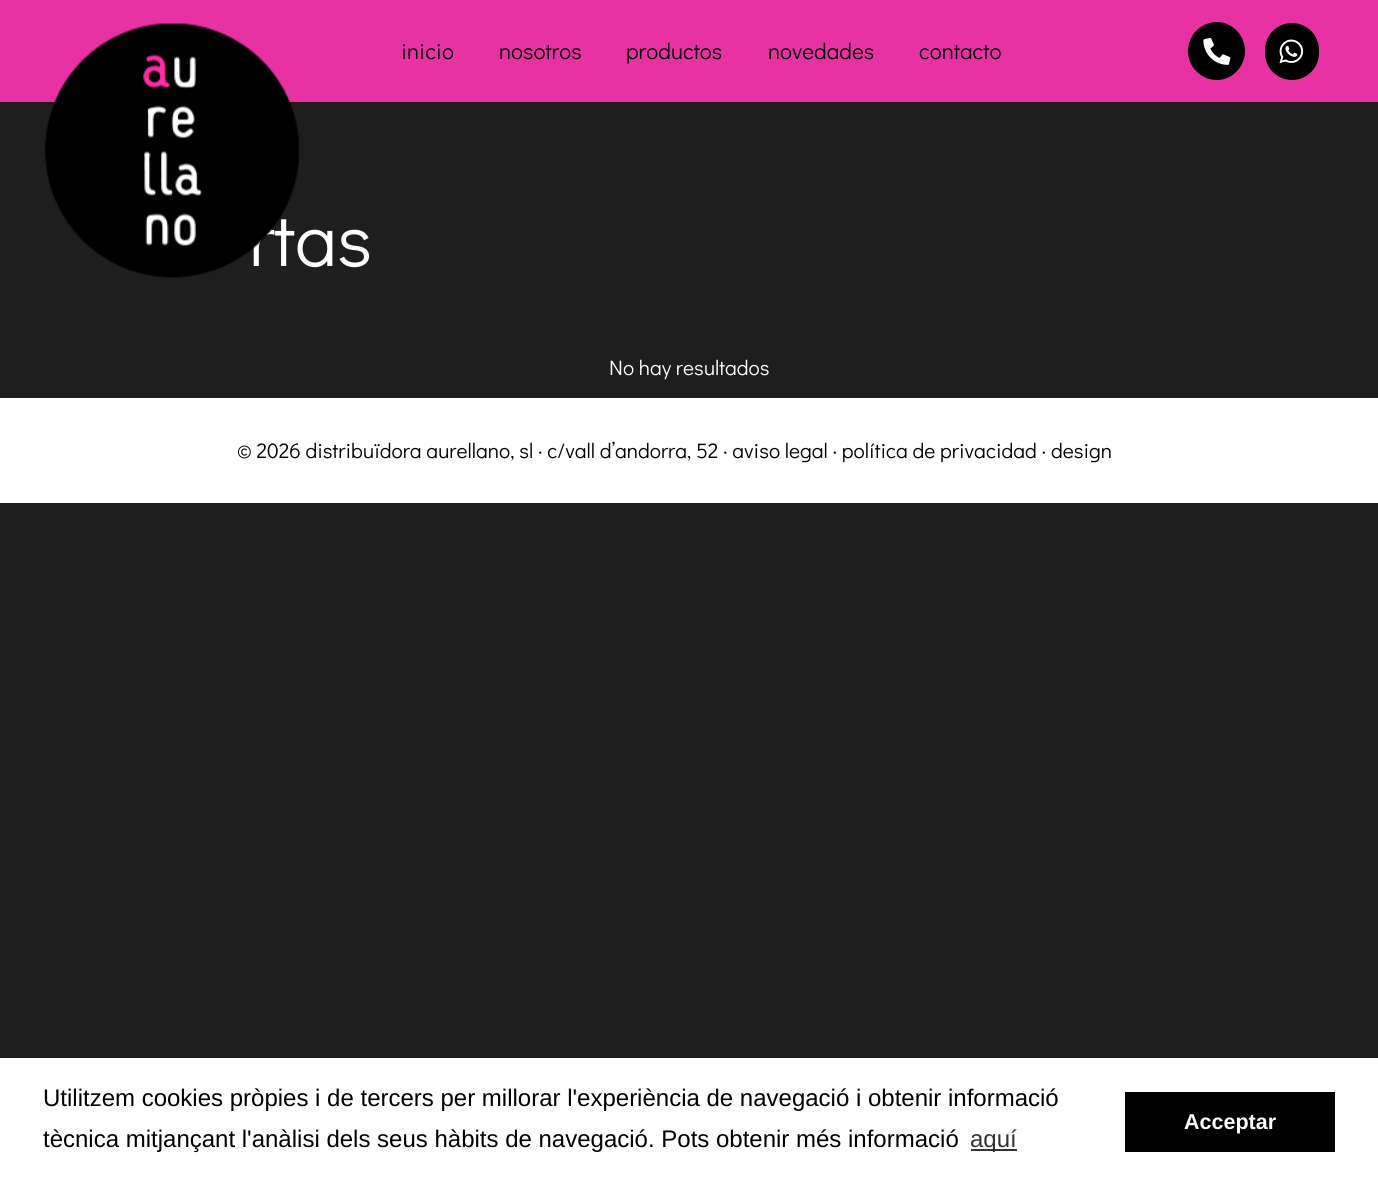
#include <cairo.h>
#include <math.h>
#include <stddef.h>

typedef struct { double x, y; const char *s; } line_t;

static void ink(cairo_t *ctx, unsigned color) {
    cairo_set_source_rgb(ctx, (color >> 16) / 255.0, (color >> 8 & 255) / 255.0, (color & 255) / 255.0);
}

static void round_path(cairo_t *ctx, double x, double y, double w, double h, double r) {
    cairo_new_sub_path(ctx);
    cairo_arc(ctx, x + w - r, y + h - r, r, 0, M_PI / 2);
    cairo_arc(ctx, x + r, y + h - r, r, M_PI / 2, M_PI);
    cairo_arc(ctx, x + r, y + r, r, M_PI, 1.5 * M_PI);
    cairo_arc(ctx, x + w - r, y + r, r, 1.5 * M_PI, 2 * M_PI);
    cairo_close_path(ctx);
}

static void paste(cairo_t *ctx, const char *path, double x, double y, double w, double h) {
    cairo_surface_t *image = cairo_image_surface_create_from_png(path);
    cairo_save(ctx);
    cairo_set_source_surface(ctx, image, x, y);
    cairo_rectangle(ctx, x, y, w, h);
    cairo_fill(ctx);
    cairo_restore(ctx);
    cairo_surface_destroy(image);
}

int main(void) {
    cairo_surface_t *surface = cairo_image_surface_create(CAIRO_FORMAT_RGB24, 1378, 1186);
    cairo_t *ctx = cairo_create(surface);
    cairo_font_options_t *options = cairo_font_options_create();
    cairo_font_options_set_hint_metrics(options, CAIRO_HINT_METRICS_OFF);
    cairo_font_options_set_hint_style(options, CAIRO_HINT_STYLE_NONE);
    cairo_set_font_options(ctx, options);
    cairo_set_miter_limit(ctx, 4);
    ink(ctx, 0x1E1E1E);
    cairo_paint(ctx);
    ink(ctx, 0xE832A3);
    cairo_rectangle(ctx, 0, 0, 1378, 102);
    cairo_fill(ctx);
    cairo_select_font_face(ctx, "Didact Gothic", CAIRO_FONT_SLANT_NORMAL, CAIRO_FONT_WEIGHT_NORMAL);
    cairo_set_font_size(ctx, 75);
    ink(ctx, 0xFFFFFF);
    cairo_move_to(ctx, 249, 266);
    cairo_show_text(ctx, "rtas");
    paste(ctx, "media/1.png", 45, 23, 254, 255);
    cairo_set_font_size(ctx, 22.5);
    ink(ctx, 0x000000);
    {
        static const line_t items[] = {
            {401, 59, "inicio"},
            {499, 59, "nosotros"},
            {626, 59, "productos"},
            {768, 59, "novedades"},
            {919, 59, "contacto"},
        };
        for (size_t i = 0; i < sizeof items / sizeof *items; i++) {
            cairo_move_to(ctx, items[i].x, items[i].y);
            cairo_show_text(ctx, items[i].s);
        }
    }
    cairo_new_path(ctx);
    cairo_move_to(ctx, 1217, 22);
    cairo_curve_to(ctx, 1201, 22, 1188, 35, 1188, 51);
    cairo_curve_to(ctx, 1188, 67, 1201, 80, 1217, 80);
    cairo_curve_to(ctx, 1232, 80, 1245, 67, 1245, 51);
    cairo_curve_to(ctx, 1245, 35, 1232, 22, 1217, 22);
    cairo_close_path(ctx);
    cairo_fill(ctx);
    paste(ctx, "media/2.png", 1203, 37, 28, 28);
    round_path(ctx, 1265, 23, 54, 57, 27);
    cairo_fill(ctx);
    paste(ctx, "media/3.png", 1279, 39, 25, 25);
    cairo_set_font_size(ctx, 21);
    ink(ctx, 0xFFFFFF);
    cairo_move_to(ctx, 609, 375);
    cairo_show_text(ctx, "No hay resultados");
    cairo_rectangle(ctx, 0, 398, 1378, 105);
    cairo_fill(ctx);
    ink(ctx, 0x000000);
    cairo_move_to(ctx, 237, 458);
    cairo_show_text(ctx, "© 2026 distribuïdora aurellano, sl · c/vall d’andorra, 52 · aviso legal · política de privacidad · design");
    ink(ctx, 0xFFFFFF);
    cairo_rectangle(ctx, 0, 1058, 1378, 128);
    cairo_fill(ctx);
    cairo_select_font_face(ctx, "Liberation Sans", CAIRO_FONT_SLANT_NORMAL, CAIRO_FONT_WEIGHT_NORMAL);
    cairo_set_font_size(ctx, 24);
    ink(ctx, 0x000000);
    cairo_move_to(ctx, 43, 1106);
    cairo_show_text(ctx, "Utilitzem cookies pròpies i de tercers per millorar l'experiència de navegació i obtenir informació");
    cairo_move_to(ctx, 43, 1147);
    cairo_show_text(ctx, "tècnica mitjançant l'anàlisi dels seus hàbits de navegació. Pots obtenir més informació");
    ink(ctx, 0x333333);
    cairo_rectangle(ctx, 971, 1149, 46, 2);
    cairo_fill(ctx);
    cairo_move_to(ctx, 970, 1147);
    cairo_show_text(ctx, "aquí");
    ink(ctx, 0x000000);
    cairo_rectangle(ctx, 1125, 1092, 210, 60);
    cairo_fill(ctx);
    cairo_select_font_face(ctx, "Liberation Sans", CAIRO_FONT_SLANT_NORMAL, CAIRO_FONT_WEIGHT_BOLD);
    cairo_set_font_size(ctx, 21.5);
    ink(ctx, 0xFFFFFF);
    cairo_move_to(ctx, 1184, 1129);
    cairo_show_text(ctx, "Acceptar");
    cairo_surface_write_to_png(surface, "image.png");
    cairo_font_options_destroy(options);
    cairo_destroy(ctx);
    cairo_surface_destroy(surface);
    return 0;
}
